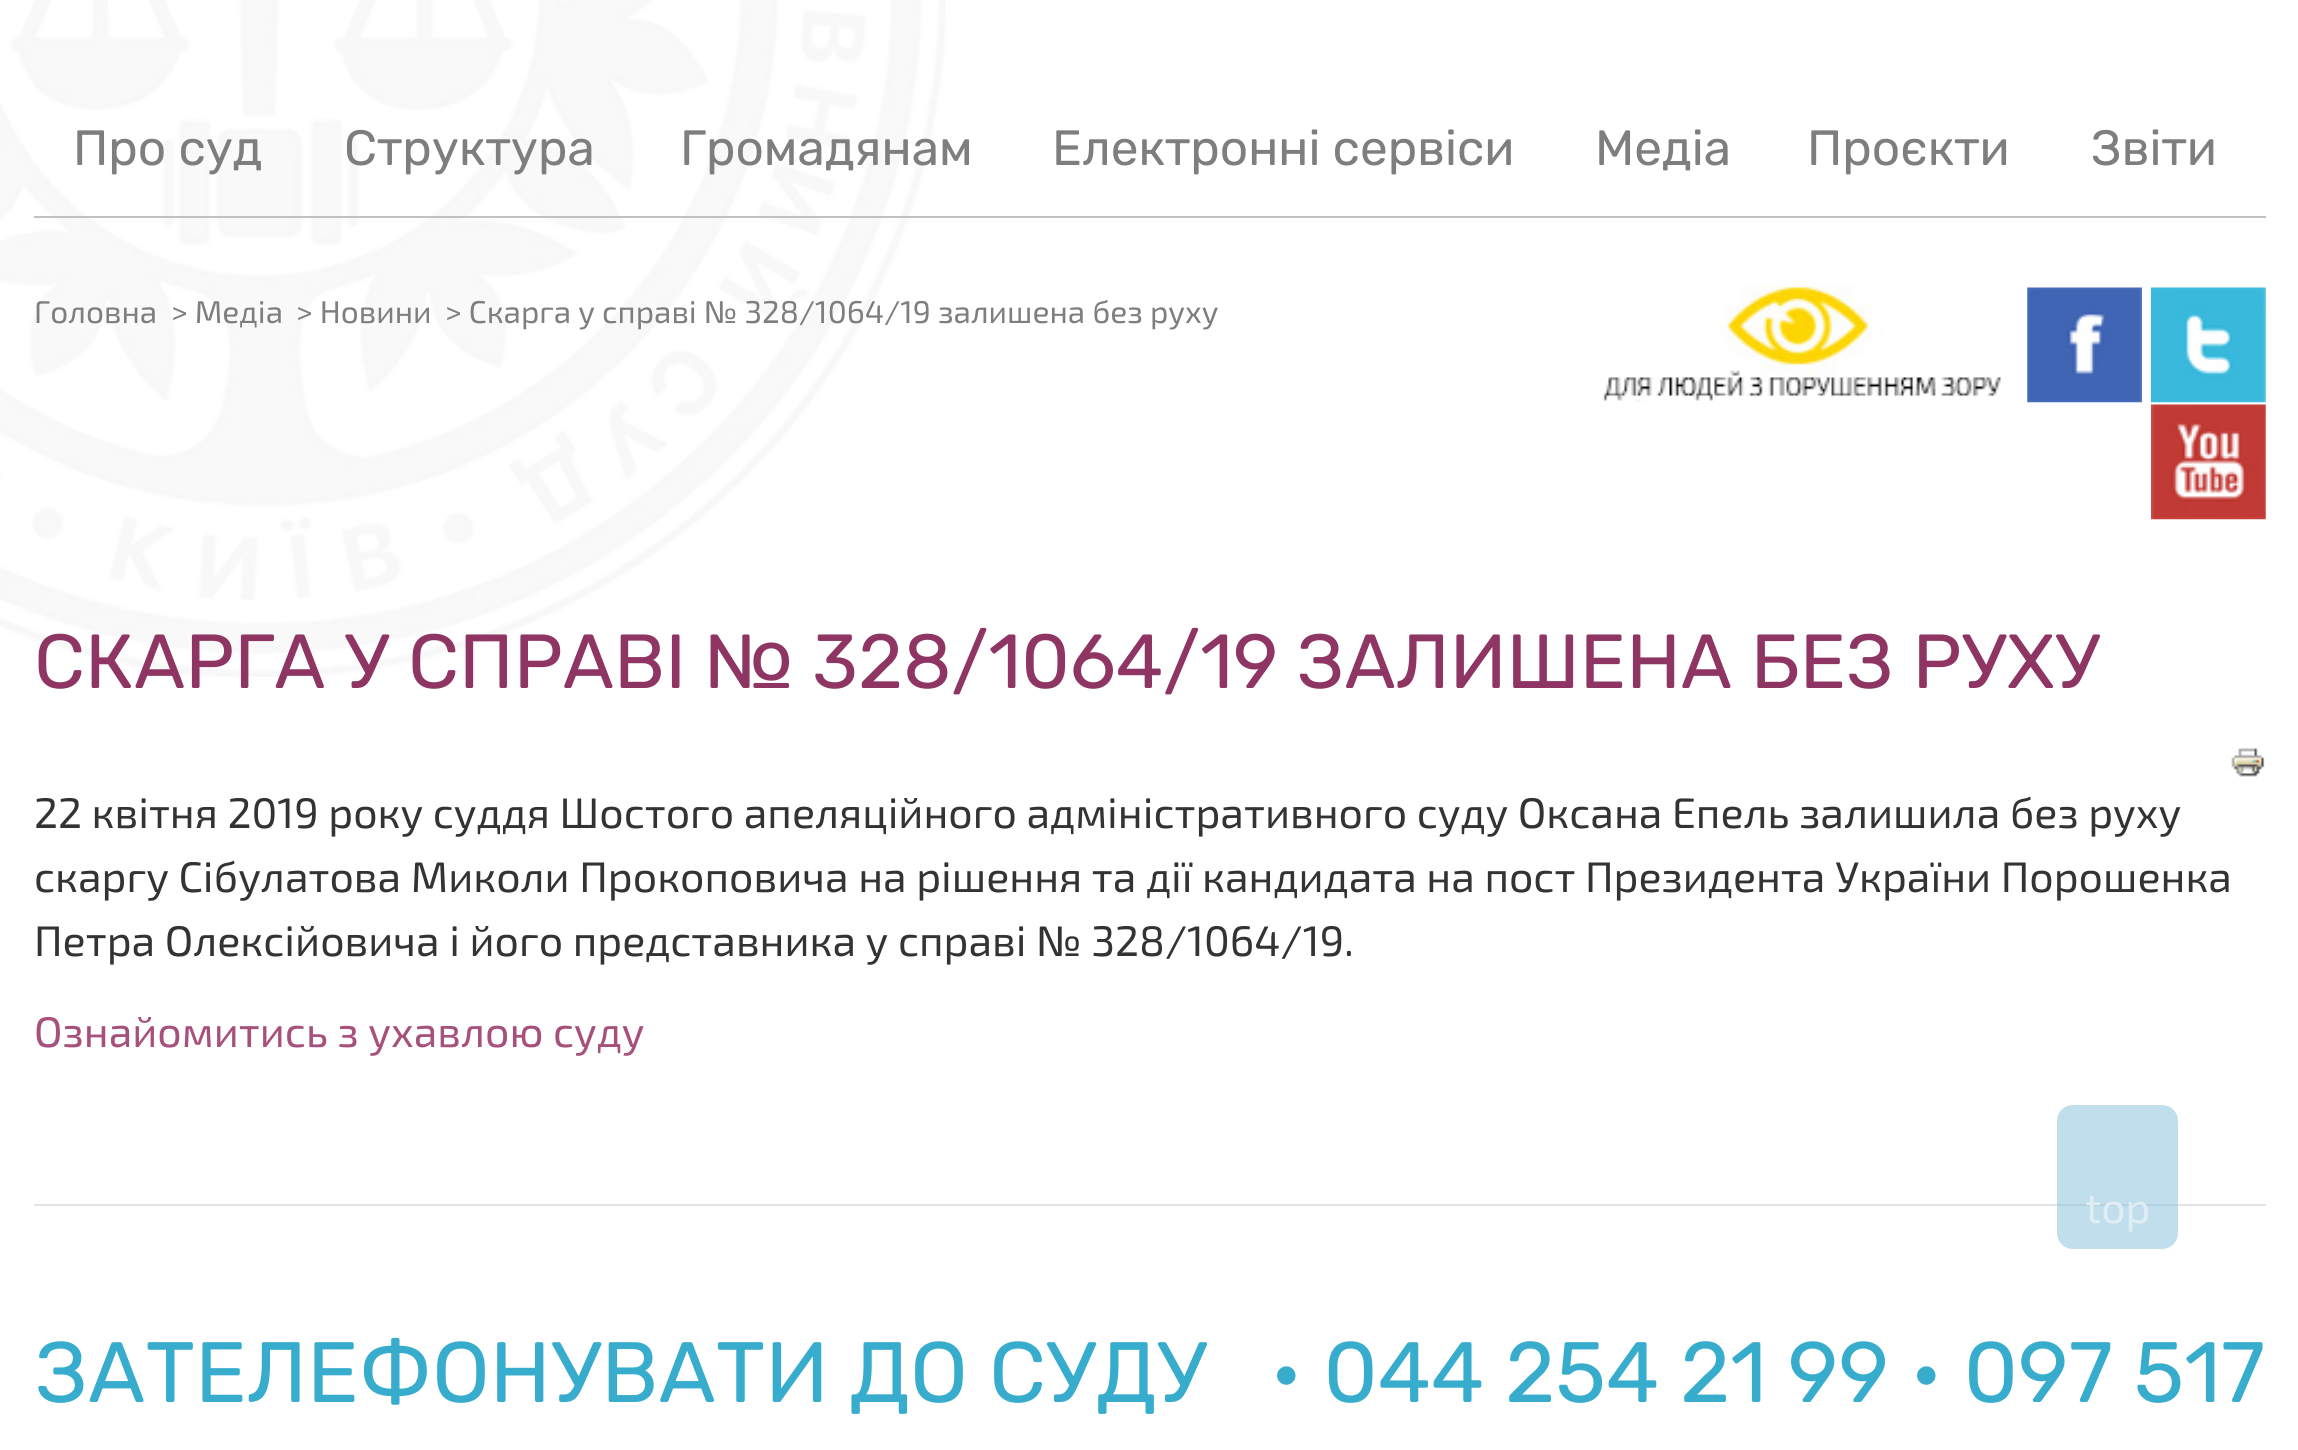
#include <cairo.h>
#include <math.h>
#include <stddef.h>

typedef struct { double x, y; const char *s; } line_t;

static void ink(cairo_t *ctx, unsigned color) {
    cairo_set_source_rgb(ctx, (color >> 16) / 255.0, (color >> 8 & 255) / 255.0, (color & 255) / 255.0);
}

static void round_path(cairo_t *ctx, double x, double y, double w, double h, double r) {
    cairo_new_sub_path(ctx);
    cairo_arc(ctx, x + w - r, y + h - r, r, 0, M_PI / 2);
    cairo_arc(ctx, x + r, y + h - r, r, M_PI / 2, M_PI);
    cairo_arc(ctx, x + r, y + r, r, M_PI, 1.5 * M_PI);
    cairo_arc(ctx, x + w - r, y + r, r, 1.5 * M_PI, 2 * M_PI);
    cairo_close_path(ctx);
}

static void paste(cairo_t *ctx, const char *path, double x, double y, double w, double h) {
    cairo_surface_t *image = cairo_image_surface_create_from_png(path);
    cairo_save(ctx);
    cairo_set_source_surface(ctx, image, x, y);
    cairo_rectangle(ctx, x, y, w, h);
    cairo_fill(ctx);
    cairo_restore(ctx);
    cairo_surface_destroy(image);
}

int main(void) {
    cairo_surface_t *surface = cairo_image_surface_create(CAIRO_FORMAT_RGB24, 2298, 1450);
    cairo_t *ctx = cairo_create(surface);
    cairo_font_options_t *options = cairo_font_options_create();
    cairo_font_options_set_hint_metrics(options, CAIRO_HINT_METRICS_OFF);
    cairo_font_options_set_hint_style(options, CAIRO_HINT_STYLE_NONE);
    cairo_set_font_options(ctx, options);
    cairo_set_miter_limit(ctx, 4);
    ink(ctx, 0xFFFFFF);
    cairo_paint(ctx);
    paste(ctx, "media/1.png", 0, 0, 946, 677);
    ink(ctx, 0xC1C1C1);
    cairo_rectangle(ctx, 34, 216, 2232, 2);
    cairo_fill(ctx);
    cairo_select_font_face(ctx, "Rubik Light", CAIRO_FONT_SLANT_NORMAL, CAIRO_FONT_WEIGHT_NORMAL);
    cairo_set_font_size(ctx, 49.5);
    ink(ctx, 0x7F7E7E);
    {
        static const line_t items[] = {
            {73, 165, "Про суд"},
            {344, 165, "Структура"},
            {680, 165, "Громадянам"},
            {1052, 165, "Електронні сервіси"},
            {1595, 165, "Медіа"},
            {1807, 165, "Проєкти"},
            {2091, 165, "Звіти"},
        };
        for (size_t i = 0; i < sizeof items / sizeof *items; i++) {
            cairo_move_to(ctx, items[i].x, items[i].y);
            cairo_show_text(ctx, items[i].s);
        }
    }
    cairo_select_font_face(ctx, "Exo 2", CAIRO_FONT_SLANT_NORMAL, CAIRO_FONT_WEIGHT_NORMAL);
    cairo_set_font_size(ctx, 31.5);
    {
        static const line_t items[] = {
            {34, 323, "Головна"},
            {171, 323, "> Медіа"},
            {296, 323, "> Новини"},
            {445, 323, "> Скарга у справі № 328/1064/19 залишена без руху"},
        };
        for (size_t i = 0; i < sizeof items / sizeof *items; i++) {
            cairo_move_to(ctx, items[i].x, items[i].y);
            cairo_show_text(ctx, items[i].s);
        }
    }
    paste(ctx, "media/2.png", 1603, 285, 398, 118);
    paste(ctx, "media/3.png", 2027, 287, 115, 116);
    paste(ctx, "media/4.png", 2151, 287, 115, 116);
    paste(ctx, "media/5.png", 2151, 404, 115, 116);
    cairo_select_font_face(ctx, "Rubik Light", CAIRO_FONT_SLANT_NORMAL, CAIRO_FONT_WEIGHT_NORMAL);
    cairo_set_font_size(ctx, 76.5);
    ink(ctx, 0x8E3563);
    cairo_move_to(ctx, 34, 688);
    cairo_show_text(ctx, "СКАРГА У СПРАВІ № 328/1064/19 ЗАЛИШЕНА БЕЗ РУХУ");
    paste(ctx, "media/6.png", 2231, 748, 34, 29);
    cairo_select_font_face(ctx, "Exo 2", CAIRO_FONT_SLANT_NORMAL, CAIRO_FONT_WEIGHT_NORMAL);
    cairo_set_font_size(ctx, 42.75);
    ink(ctx, 0x333333);
    {
        static const line_t items[] = {
            {34, 828, "22 квітня 2019 року суддя Шостого апеляційного адміністративного суду Оксана Епель залишила без руху"},
            {34, 892, "скаргу Сібулатова Миколи Прокоповича на рішення та дії кандидата на пост Президента України Порошенка"},
            {34, 956, "Петра Олексійовича і його представника у справі № 328/1064/19."},
        };
        for (size_t i = 0; i < sizeof items / sizeof *items; i++) {
            cairo_move_to(ctx, items[i].x, items[i].y);
            cairo_show_text(ctx, items[i].s);
        }
    }
    ink(ctx, 0xA7507B);
    cairo_move_to(ctx, 34, 1047);
    cairo_show_text(ctx, "Ознайомитись з ухавлою суду");
    ink(ctx, 0xE4E4E4);
    cairo_rectangle(ctx, 34, 1204, 2232, 2);
    cairo_fill(ctx);
    cairo_select_font_face(ctx, "Rubik Light", CAIRO_FONT_SLANT_NORMAL, CAIRO_FONT_WEIGHT_NORMAL);
    cairo_set_font_size(ctx, 85.5);
    ink(ctx, 0x37ACCD);
    cairo_move_to(ctx, 35, 1402);
    cairo_show_text(ctx, "ЗАТЕЛЕФОНУВАТИ ДО СУДУ   • 044 254 21 99 • 097 517");
    cairo_set_source_rgba(ctx, 0.51, 0.745, 0.847, 0.5);
    round_path(ctx, 2057, 1105, 121, 144, 16);
    cairo_fill(ctx);
    cairo_select_font_face(ctx, "Exo 2", CAIRO_FONT_SLANT_NORMAL, CAIRO_FONT_WEIGHT_NORMAL);
    cairo_set_font_size(ctx, 42.75);
    ink(ctx, 0xDFEEF4);
    cairo_move_to(ctx, 2085, 1223);
    cairo_show_text(ctx, "top");
    cairo_surface_write_to_png(surface, "image.png");
    cairo_font_options_destroy(options);
    cairo_destroy(ctx);
    cairo_surface_destroy(surface);
    return 0;
}
